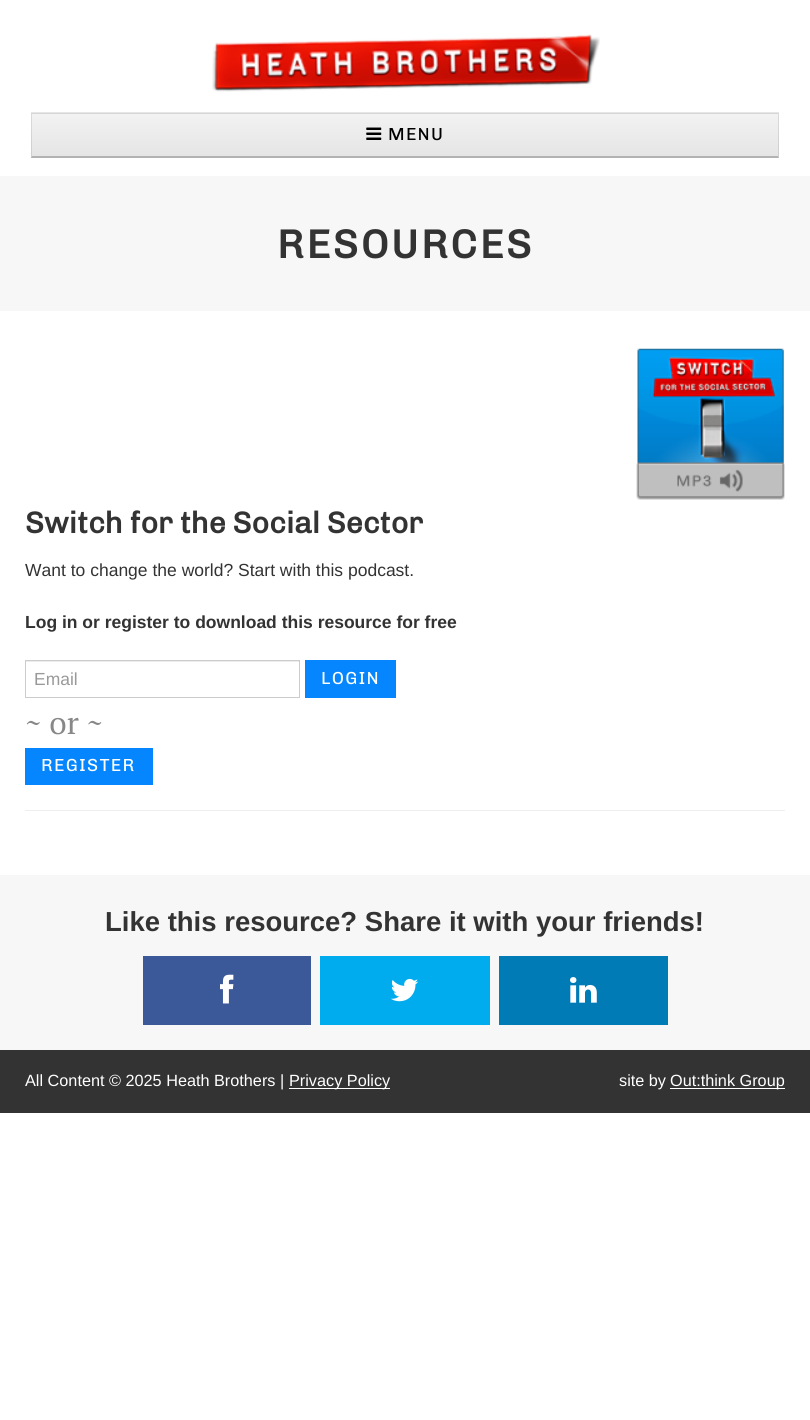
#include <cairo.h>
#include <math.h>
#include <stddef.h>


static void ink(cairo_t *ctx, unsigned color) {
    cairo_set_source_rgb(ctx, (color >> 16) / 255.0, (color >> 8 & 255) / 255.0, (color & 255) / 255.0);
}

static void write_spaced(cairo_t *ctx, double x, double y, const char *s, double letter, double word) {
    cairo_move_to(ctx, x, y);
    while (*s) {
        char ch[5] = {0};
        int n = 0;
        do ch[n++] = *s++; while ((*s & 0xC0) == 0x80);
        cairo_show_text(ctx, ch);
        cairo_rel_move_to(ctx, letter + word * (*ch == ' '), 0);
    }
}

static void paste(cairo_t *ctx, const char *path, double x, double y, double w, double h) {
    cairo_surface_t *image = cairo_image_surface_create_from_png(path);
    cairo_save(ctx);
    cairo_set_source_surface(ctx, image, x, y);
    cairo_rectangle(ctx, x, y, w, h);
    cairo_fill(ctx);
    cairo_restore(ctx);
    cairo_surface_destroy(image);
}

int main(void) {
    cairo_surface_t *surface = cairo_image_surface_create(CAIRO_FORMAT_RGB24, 810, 1420);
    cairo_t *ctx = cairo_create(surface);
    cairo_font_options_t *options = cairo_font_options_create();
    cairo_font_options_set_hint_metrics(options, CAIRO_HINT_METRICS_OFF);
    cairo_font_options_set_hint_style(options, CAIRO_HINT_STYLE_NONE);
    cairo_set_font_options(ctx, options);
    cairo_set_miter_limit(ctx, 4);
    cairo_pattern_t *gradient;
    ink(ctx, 0xFFFFFF);
    cairo_paint(ctx);
    paste(ctx, "media/1.png", 212, 34, 388, 58);
    ink(ctx, 0xEDEDED);
    cairo_rectangle(ctx, 31, 113, 748, 45);
    cairo_fill(ctx);
    gradient = cairo_pattern_create_linear(405, 114, 405, 156);
    cairo_pattern_add_color_stop_rgba(gradient, 0, 0.949, 0.949, 0.949, 1);
    cairo_pattern_add_color_stop_rgba(gradient, 1, 0.898, 0.898, 0.898, 1);
    cairo_set_source(ctx, gradient);
    cairo_pattern_destroy(gradient);
    cairo_rectangle(ctx, 31, 114, 748, 42);
    cairo_fill(ctx);
    cairo_set_source_rgba(ctx, 0, 0, 0, 0.1);
    cairo_new_path(ctx);
    cairo_move_to(ctx, 31, 112);
    cairo_line_to(ctx, 779, 112);
    cairo_line_to(ctx, 778, 114);
    cairo_line_to(ctx, 32, 114);
    cairo_close_path(ctx);
    cairo_fill(ctx);
    cairo_new_path(ctx);
    cairo_move_to(ctx, 779, 112);
    cairo_line_to(ctx, 779, 158);
    cairo_line_to(ctx, 778, 156);
    cairo_line_to(ctx, 778, 114);
    cairo_close_path(ctx);
    cairo_fill(ctx);
    cairo_set_source_rgba(ctx, 0, 0, 0, 0.25);
    cairo_new_path(ctx);
    cairo_move_to(ctx, 779, 158);
    cairo_line_to(ctx, 31, 158);
    cairo_line_to(ctx, 32, 156);
    cairo_line_to(ctx, 778, 156);
    cairo_close_path(ctx);
    cairo_fill(ctx);
    cairo_set_source_rgba(ctx, 0, 0, 0, 0.1);
    cairo_new_path(ctx);
    cairo_move_to(ctx, 31, 158);
    cairo_line_to(ctx, 31, 112);
    cairo_line_to(ctx, 32, 114);
    cairo_line_to(ctx, 32, 156);
    cairo_close_path(ctx);
    cairo_fill(ctx);
    paste(ctx, "media/2.png", 366, 127, 16, 13);
    cairo_select_font_face(ctx, "Chivo Medium", CAIRO_FONT_SLANT_NORMAL, CAIRO_FONT_WEIGHT_NORMAL);
    cairo_set_font_size(ctx, 17.5);
    ink(ctx, 0x000000);
    write_spaced(ctx, 388, 140, "MENU", 1.25, 0);
    ink(ctx, 0xF7F7F7);
    cairo_rectangle(ctx, 0, 176, 810, 135);
    cairo_fill(ctx);
    cairo_select_font_face(ctx, "Chivo", CAIRO_FONT_SLANT_NORMAL, CAIRO_FONT_WEIGHT_BOLD);
    cairo_set_font_size(ctx, 40);
    ink(ctx, 0x333333);
    write_spaced(ctx, 277, 258, "RESOURCES", 2.5, 0);
    paste(ctx, "media/3.png", 636, 348, 149, 152);
    cairo_set_font_size(ctx, 30);
    cairo_move_to(ctx, 25, 533);
    cairo_show_text(ctx, "Switch for the Social Sector");
    cairo_select_font_face(ctx, "Liberation Sans", CAIRO_FONT_SLANT_NORMAL, CAIRO_FONT_WEIGHT_NORMAL);
    cairo_set_font_size(ctx, 17.5);
    cairo_move_to(ctx, 25, 576);
    cairo_show_text(ctx, "Want to change the world? Start with this podcast.");
    cairo_select_font_face(ctx, "Liberation Sans", CAIRO_FONT_SLANT_NORMAL, CAIRO_FONT_WEIGHT_BOLD);
    cairo_move_to(ctx, 25, 628);
    cairo_show_text(ctx, "Log in or register to download this resource for free");
    ink(ctx, 0xECECEC);
    cairo_rectangle(ctx, 26, 661, 273, 1);
    cairo_fill(ctx);
    cairo_rectangle(ctx, 25.5, 660.5, 274, 37);
    ink(ctx, 0xCCCCCC);
    cairo_set_line_width(ctx, 1);
    cairo_stroke(ctx);
    cairo_select_font_face(ctx, "Liberation Sans", CAIRO_FONT_SLANT_NORMAL, CAIRO_FONT_WEIGHT_NORMAL);
    ink(ctx, 0x999999);
    cairo_move_to(ctx, 34, 685);
    cairo_show_text(ctx, "Email");
    ink(ctx, 0x0586FF);
    cairo_rectangle(ctx, 305, 660, 91, 38);
    cairo_fill(ctx);
    cairo_select_font_face(ctx, "Chivo Medium", CAIRO_FONT_SLANT_NORMAL, CAIRO_FONT_WEIGHT_NORMAL);
    ink(ctx, 0xFFFFFF);
    write_spaced(ctx, 321, 684, "LOGIN", 1.25, 0);
    cairo_select_font_face(ctx, "PT Serif", CAIRO_FONT_SLANT_NORMAL, CAIRO_FONT_WEIGHT_NORMAL);
    cairo_set_font_size(ctx, 31.5);
    ink(ctx, 0x888888);
    cairo_move_to(ctx, 25, 734);
    cairo_show_text(ctx, "~ or ~");
    ink(ctx, 0x0586FF);
    cairo_rectangle(ctx, 25, 748, 128, 37);
    cairo_fill(ctx);
    cairo_select_font_face(ctx, "Chivo Medium", CAIRO_FONT_SLANT_NORMAL, CAIRO_FONT_WEIGHT_NORMAL);
    cairo_set_font_size(ctx, 17.5);
    ink(ctx, 0xFFFFFF);
    write_spaced(ctx, 41, 771, "REGISTER", 1.25, 0);
    ink(ctx, 0xEEEEEE);
    cairo_rectangle(ctx, 25, 810, 760, 1);
    cairo_fill(ctx);
    ink(ctx, 0xF7F7F7);
    cairo_rectangle(ctx, 0, 875, 810, 175);
    cairo_fill(ctx);
    cairo_select_font_face(ctx, "Liberation Sans", CAIRO_FONT_SLANT_NORMAL, CAIRO_FONT_WEIGHT_BOLD);
    cairo_set_font_size(ctx, 27.5);
    ink(ctx, 0x333333);
    cairo_move_to(ctx, 105, 931);
    cairo_show_text(ctx, "Like this resource? Share it with your friends!");
    ink(ctx, 0x3B5998);
    cairo_rectangle(ctx, 143, 956, 168, 69);
    cairo_fill(ctx);
    paste(ctx, "media/4.png", 220, 974, 14, 30);
    ink(ctx, 0x00ACED);
    cairo_rectangle(ctx, 320, 956, 170, 69);
    cairo_fill(ctx);
    paste(ctx, "media/5.png", 391, 978, 28, 24);
    ink(ctx, 0x007BB6);
    cairo_rectangle(ctx, 499, 956, 169, 69);
    cairo_fill(ctx);
    paste(ctx, "media/6.png", 570, 977, 27, 26);
    ink(ctx, 0x333333);
    cairo_rectangle(ctx, 0, 1050, 810, 63);
    cairo_fill(ctx);
    cairo_select_font_face(ctx, "Liberation Sans", CAIRO_FONT_SLANT_NORMAL, CAIRO_FONT_WEIGHT_NORMAL);
    cairo_set_font_size(ctx, 16.25);
    ink(ctx, 0xFFFFFF);
    cairo_move_to(ctx, 25, 1086);
    cairo_show_text(ctx, "All Content © 2025 Heath Brothers |");
    cairo_rectangle(ctx, 289, 1088, 101, 1);
    cairo_fill(ctx);
    cairo_move_to(ctx, 289, 1086);
    cairo_show_text(ctx, "Privacy Policy");
    cairo_move_to(ctx, 619, 1086);
    cairo_show_text(ctx, "site by");
    cairo_rectangle(ctx, 670, 1088, 115, 1);
    cairo_fill(ctx);
    cairo_move_to(ctx, 670, 1086);
    cairo_show_text(ctx, "Out:think Group");
    cairo_surface_write_to_png(surface, "image.png");
    cairo_font_options_destroy(options);
    cairo_destroy(ctx);
    cairo_surface_destroy(surface);
    return 0;
}
